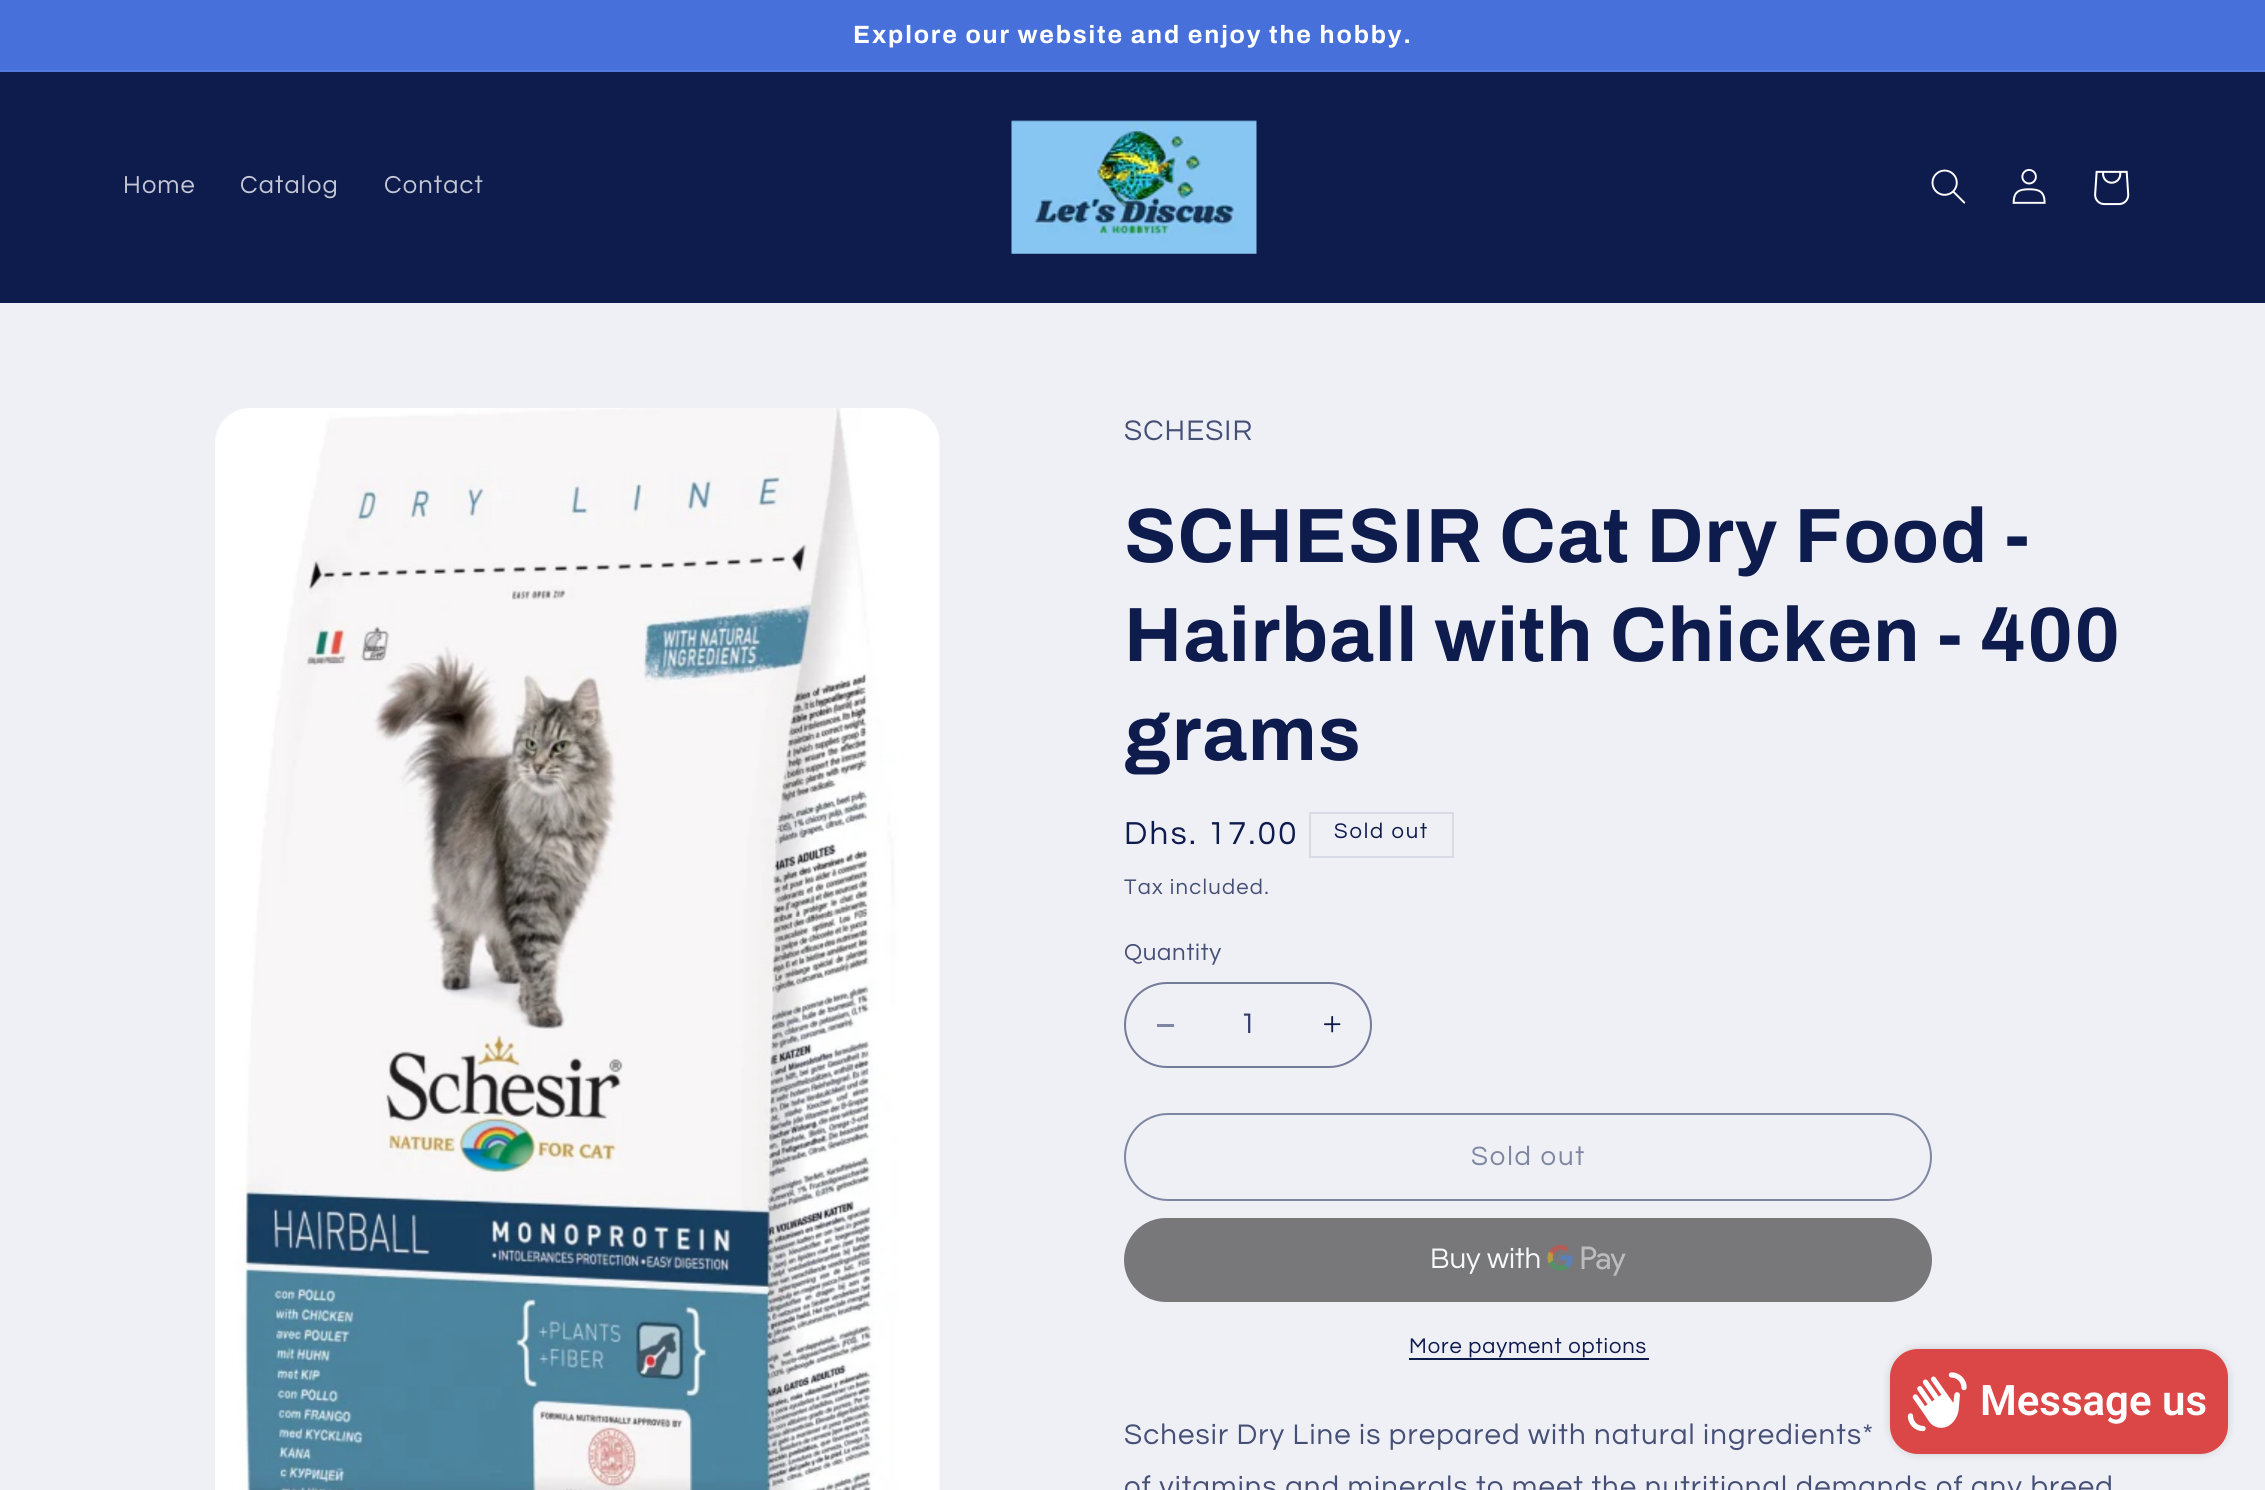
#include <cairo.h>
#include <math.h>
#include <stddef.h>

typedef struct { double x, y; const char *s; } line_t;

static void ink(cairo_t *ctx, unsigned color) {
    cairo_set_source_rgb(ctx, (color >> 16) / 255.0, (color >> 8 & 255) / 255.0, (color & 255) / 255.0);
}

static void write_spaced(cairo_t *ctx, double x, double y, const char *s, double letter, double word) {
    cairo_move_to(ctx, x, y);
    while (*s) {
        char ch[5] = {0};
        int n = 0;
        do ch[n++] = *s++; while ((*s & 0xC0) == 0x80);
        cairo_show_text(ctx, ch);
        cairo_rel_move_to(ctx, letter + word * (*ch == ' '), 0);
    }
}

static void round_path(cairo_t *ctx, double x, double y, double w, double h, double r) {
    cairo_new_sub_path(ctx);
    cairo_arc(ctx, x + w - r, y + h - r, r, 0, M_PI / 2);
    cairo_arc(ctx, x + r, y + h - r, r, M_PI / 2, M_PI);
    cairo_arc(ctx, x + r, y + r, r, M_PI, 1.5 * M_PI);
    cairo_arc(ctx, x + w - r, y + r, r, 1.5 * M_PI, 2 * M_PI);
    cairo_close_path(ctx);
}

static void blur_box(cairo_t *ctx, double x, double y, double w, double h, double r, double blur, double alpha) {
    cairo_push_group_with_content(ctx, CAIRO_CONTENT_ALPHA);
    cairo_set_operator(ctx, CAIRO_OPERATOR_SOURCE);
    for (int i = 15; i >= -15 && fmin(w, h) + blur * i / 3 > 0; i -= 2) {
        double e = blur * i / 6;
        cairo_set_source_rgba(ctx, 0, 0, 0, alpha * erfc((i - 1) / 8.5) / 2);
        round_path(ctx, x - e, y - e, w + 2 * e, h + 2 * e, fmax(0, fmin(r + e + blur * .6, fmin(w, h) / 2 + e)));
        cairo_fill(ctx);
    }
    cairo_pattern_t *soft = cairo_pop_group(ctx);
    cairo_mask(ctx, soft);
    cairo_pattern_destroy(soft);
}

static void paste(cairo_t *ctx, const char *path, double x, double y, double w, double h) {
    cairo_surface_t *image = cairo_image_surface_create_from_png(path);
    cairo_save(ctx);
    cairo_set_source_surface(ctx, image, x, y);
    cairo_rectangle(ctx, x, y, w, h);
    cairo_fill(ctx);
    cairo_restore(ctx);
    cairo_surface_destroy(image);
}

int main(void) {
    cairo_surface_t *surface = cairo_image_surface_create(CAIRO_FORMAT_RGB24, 2265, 1490);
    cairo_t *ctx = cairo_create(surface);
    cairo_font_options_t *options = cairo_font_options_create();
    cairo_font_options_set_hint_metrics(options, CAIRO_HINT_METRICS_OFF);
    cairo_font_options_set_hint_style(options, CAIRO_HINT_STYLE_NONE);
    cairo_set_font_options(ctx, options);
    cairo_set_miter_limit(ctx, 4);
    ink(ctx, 0xEFF0F5);
    cairo_paint(ctx);
    ink(ctx, 0x4770DB);
    cairo_rectangle(ctx, 0, 0, 2265, 70);
    cairo_fill(ctx);
    ink(ctx, 0x567BDE);
    cairo_rectangle(ctx, 0, 70, 2265, 2);
    cairo_fill(ctx);
    cairo_select_font_face(ctx, "Archivo", CAIRO_FONT_SLANT_NORMAL, CAIRO_FONT_WEIGHT_BOLD);
    cairo_set_font_size(ctx, 25);
    ink(ctx, 0xFFFFFF);
    write_spaced(ctx, 853, 43, "Explore our website and enjoy the hobby.", 1.85, 0);
    ink(ctx, 0x0E1B4D);
    cairo_rectangle(ctx, 0, 72, 2265, 231);
    cairo_fill(ctx);
    cairo_select_font_face(ctx, "Questrial", CAIRO_FONT_SLANT_NORMAL, CAIRO_FONT_WEIGHT_NORMAL);
    cairo_set_font_size(ctx, 25.5);
    ink(ctx, 0xC3C6D3);
    {
        static const line_t items[] = {
            {123, 193, "Home"},
            {240, 193, "Catalog"},
            {384, 193, "Contact"},
        };
        for (size_t i = 0; i < sizeof items / sizeof *items; i++) {
            write_spaced(ctx, items[i].x, items[i].y, items[i].s, 1.1, 0);
        }
    }
    paste(ctx, "media/1.png", 1011, 120, 246, 134);
    paste(ctx, "media/2.png", 1931, 169, 35, 35);
    paste(ctx, "media/3.png", 2012, 169, 34, 35);
    paste(ctx, "media/4.png", 2094, 170, 36, 36);
    paste(ctx, "media/5.png", 215, 408, 725, 1082);
    cairo_set_font_size(ctx, 29.4);
    ink(ctx, 0x465077);
    write_spaced(ctx, 1124, 440, "SCHESIR", 1.1, 0);
    cairo_select_font_face(ctx, "Archivo", CAIRO_FONT_SLANT_NORMAL, CAIRO_FONT_WEIGHT_BOLD);
    cairo_set_font_size(ctx, 77);
    ink(ctx, 0x0E1B4D);
    {
        static const line_t items[] = {
            {1124, 562, "SCHESIR Cat Dry Food -"},
            {1124, 661, "Hairball with Chicken - 400"},
            {1124, 760, "grams"},
        };
        for (size_t i = 0; i < sizeof items / sizeof *items; i++) {
            write_spaced(ctx, items[i].x, items[i].y, items[i].s, 1.15, 0);
        }
    }
    cairo_select_font_face(ctx, "Questrial", CAIRO_FONT_SLANT_NORMAL, CAIRO_FONT_WEIGHT_NORMAL);
    cairo_set_font_size(ctx, 33);
    write_spaced(ctx, 1124, 844, "Dhs. 17.00", 2.4, 0);
    cairo_rectangle(ctx, 1310, 813, 143, 44);
    ink(ctx, 0xD8DBE4);
    cairo_stroke(ctx);
    cairo_set_font_size(ctx, 22);
    ink(ctx, 0x0E1B4D);
    write_spaced(ctx, 1334, 838, "Sold out", 1.85, 0);
    ink(ctx, 0x465077);
    write_spaced(ctx, 1124, 894, "Tax included.", 1.25, 0);
    cairo_set_font_size(ctx, 24);
    write_spaced(ctx, 1124, 960, "Quantity", 0.75, 0);
    ink(ctx, 0x7F86A1);
    cairo_rectangle(ctx, 1157, 1024, 17, 3);
    cairo_fill(ctx);
    paste(ctx, "media/6.png", 1324, 1016, 17, 17);
    round_path(ctx, 1125, 983, 246, 84, 42);
    ink(ctx, 0x737B99);
    cairo_stroke(ctx);
    cairo_set_font_size(ctx, 29.4);
    ink(ctx, 0x303B66);
    cairo_move_to(ctx, 1240, 1033);
    cairo_show_text(ctx, "1");
    round_path(ctx, 1125, 1114, 806, 86, 43);
    ink(ctx, 0x7F86A1);
    cairo_stroke(ctx);
    cairo_set_font_size(ctx, 27.5);
    write_spaced(ctx, 1471, 1165, "Sold out", 1.85, 0);
    ink(ctx, 0x78787B);
    round_path(ctx, 1124, 1218, 808, 84, 42);
    cairo_fill(ctx);
    cairo_set_font_size(ctx, 29.4);
    ink(ctx, 0xF7F8FA);
    cairo_move_to(ctx, 1430, 1268);
    cairo_show_text(ctx, "Buy with");
    paste(ctx, "media/7.png", 1547, 1244, 79, 32);
    cairo_set_font_size(ctx, 22);
    ink(ctx, 0x0E1B4D);
    write_spaced(ctx, 1409, 1353, "More payment options", 0.9, 0);
    cairo_rectangle(ctx, 1409, 1358, 240, 2);
    cairo_fill(ctx);
    cairo_set_font_size(ctx, 29.4);
    ink(ctx, 0x465077);
    write_spaced(ctx, 1124, 1444, "Schesir Dry Line is prepared with natural ingredients*", 1.1, 0);
    write_spaced(ctx, 1124, 1496, "of vitamins and minerals to meet the nutritional demands of any breed", 1.1, 0);
    ink(ctx, 0x000000);
    blur_box(ctx, 1890, 1349, 338, 105, 28, 4.5, 0.15);
    ink(ctx, 0xDB4747);
    round_path(ctx, 1890, 1349, 338, 105, 28);
    cairo_fill(ctx);
    paste(ctx, "media/8.png", 1907, 1372, 60, 60);
    cairo_select_font_face(ctx, "Roboto SemiBold", CAIRO_FONT_SLANT_NORMAL, CAIRO_FONT_WEIGHT_NORMAL);
    cairo_set_font_size(ctx, 42);
    ink(ctx, 0xFFFFFF);
    cairo_move_to(ctx, 1980, 1415);
    cairo_show_text(ctx, "Message us");
    cairo_surface_write_to_png(surface, "image.png");
    cairo_font_options_destroy(options);
    cairo_destroy(ctx);
    cairo_surface_destroy(surface);
    return 0;
}
